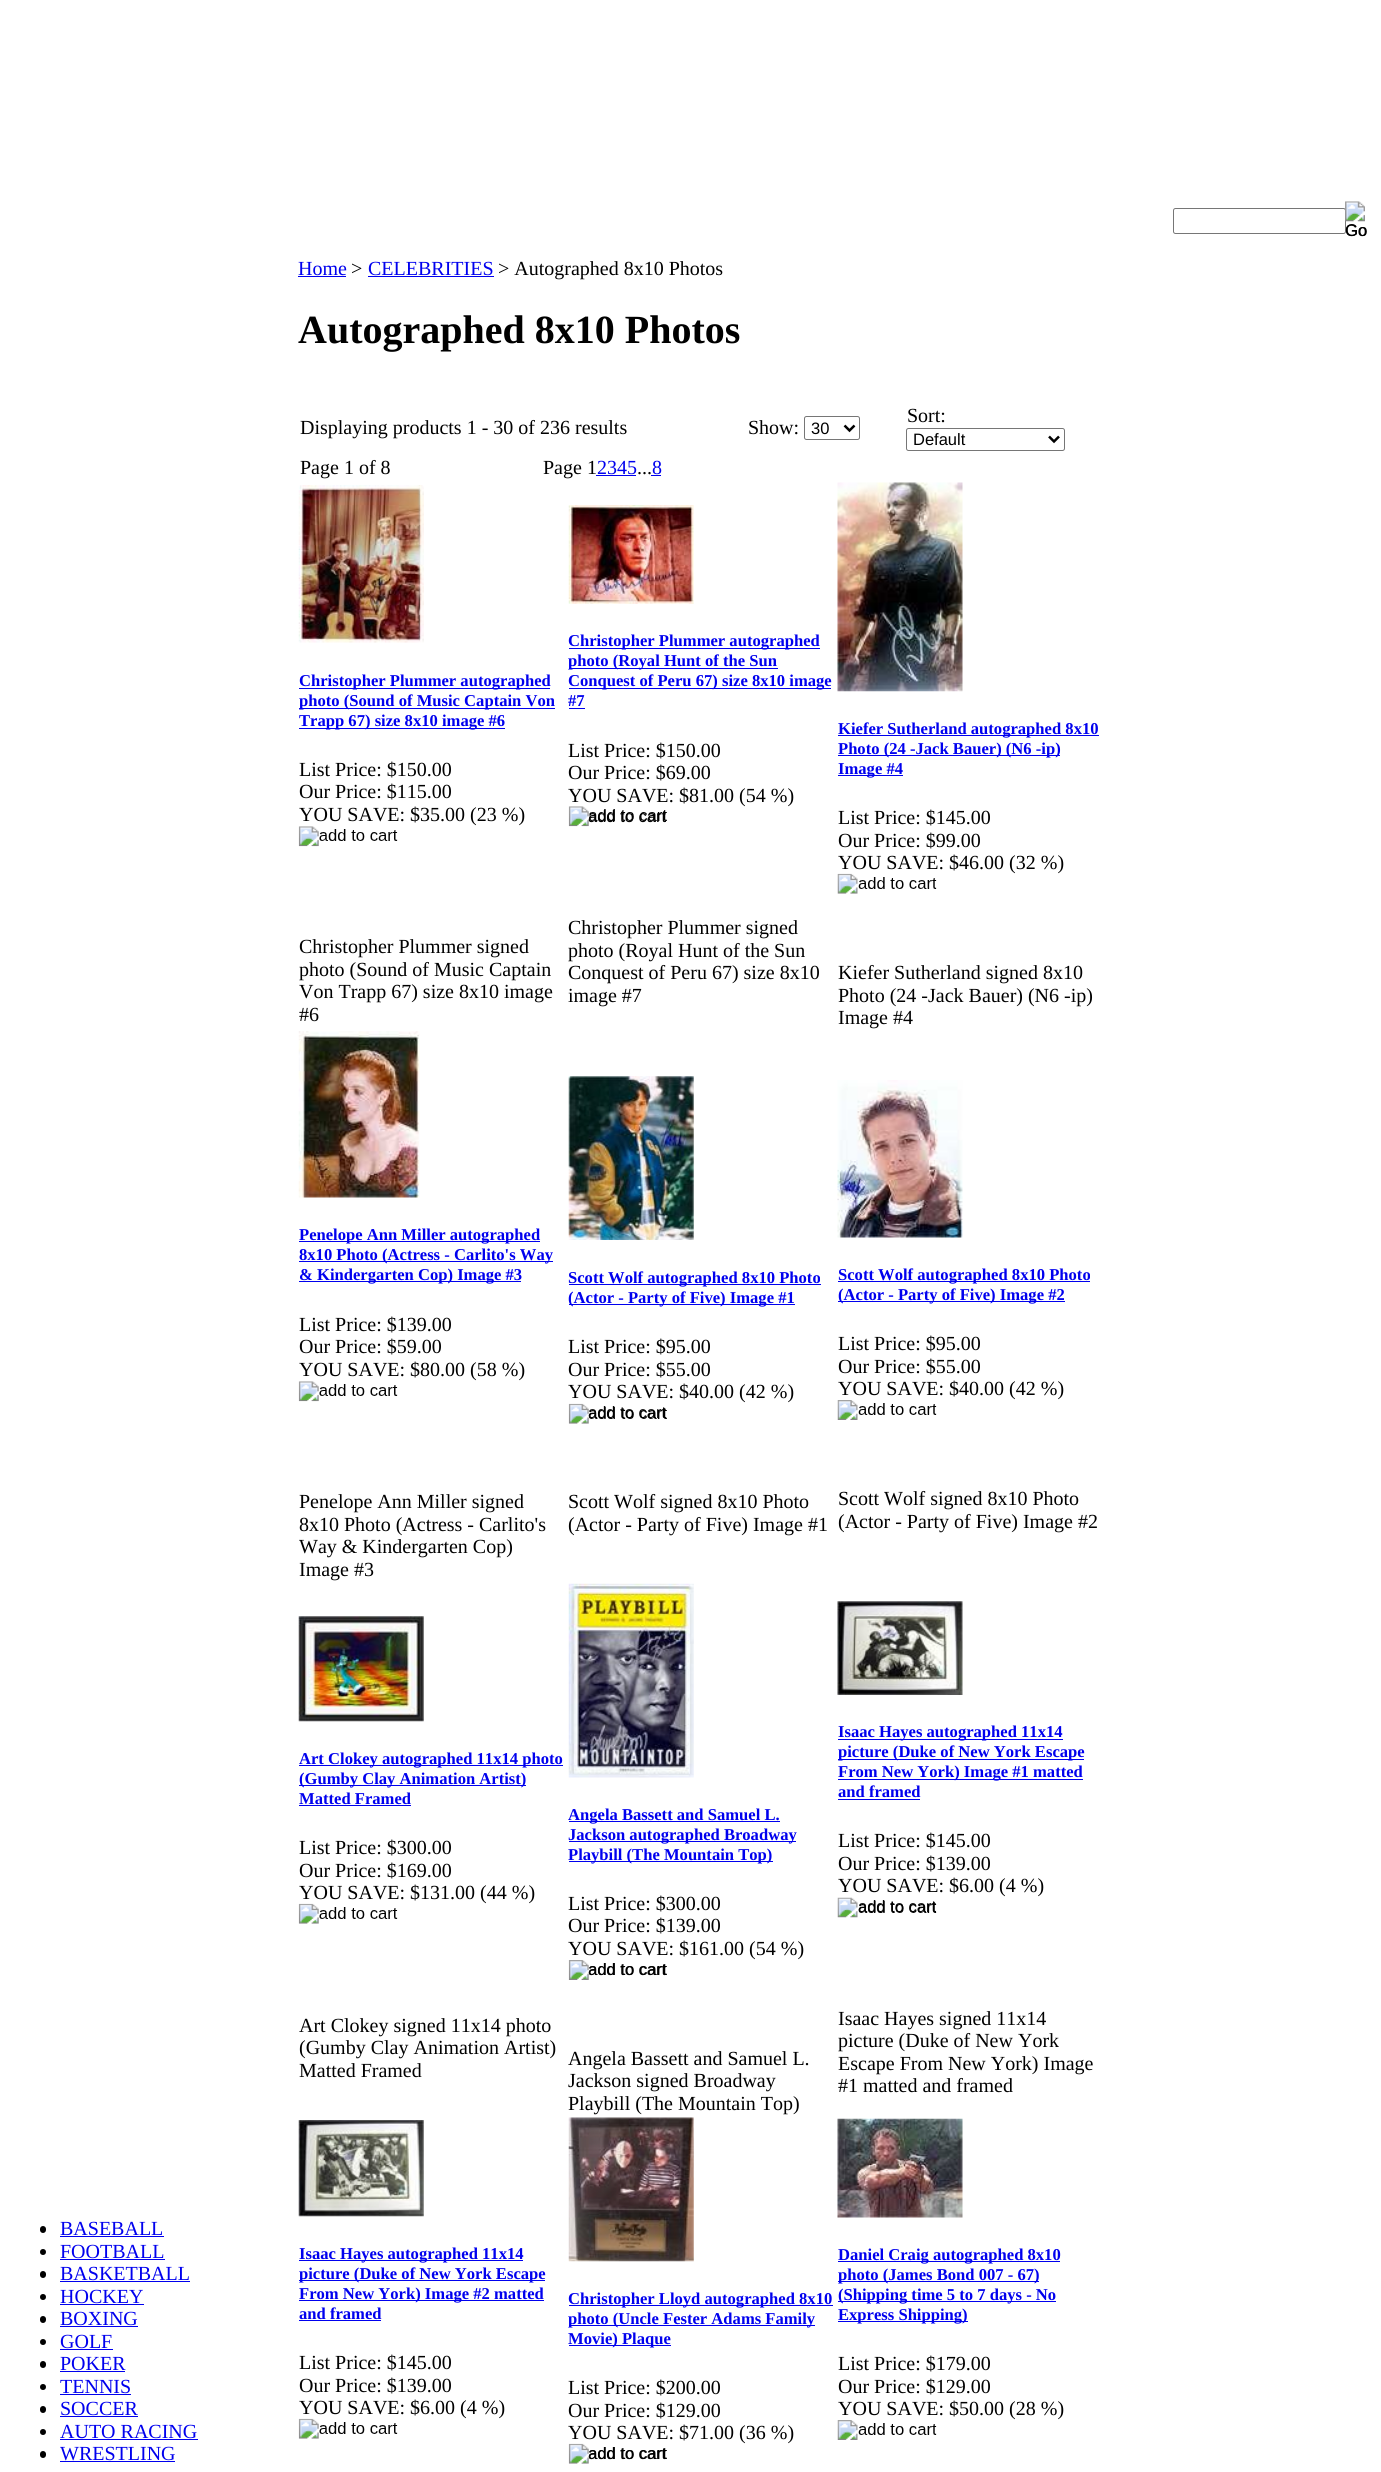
#include <cairo.h>
#include <math.h>
#include <stddef.h>

typedef struct { double x, y; const char *s; } line_t;

static void ink(cairo_t *ctx, unsigned color) {
    cairo_set_source_rgb(ctx, (color >> 16) / 255.0, (color >> 8 & 255) / 255.0, (color & 255) / 255.0);
}

static void round_path(cairo_t *ctx, double x, double y, double w, double h, double r) {
    cairo_new_sub_path(ctx);
    cairo_arc(ctx, x + w - r, y + h - r, r, 0, M_PI / 2);
    cairo_arc(ctx, x + r, y + h - r, r, M_PI / 2, M_PI);
    cairo_arc(ctx, x + r, y + r, r, M_PI, 1.5 * M_PI);
    cairo_arc(ctx, x + w - r, y + r, r, 1.5 * M_PI, 2 * M_PI);
    cairo_close_path(ctx);
}

static void paste(cairo_t *ctx, const char *path, double x, double y, double w, double h) {
    cairo_surface_t *image = cairo_image_surface_create_from_png(path);
    cairo_save(ctx);
    cairo_set_source_surface(ctx, image, x, y);
    cairo_rectangle(ctx, x, y, w, h);
    cairo_fill(ctx);
    cairo_restore(ctx);
    cairo_surface_destroy(image);
}

int main(void) {
    cairo_surface_t *surface = cairo_image_surface_create(CAIRO_FORMAT_RGB24, 1381, 2472);
    cairo_t *ctx = cairo_create(surface);
    cairo_font_options_t *options = cairo_font_options_create();
    cairo_font_options_set_hint_metrics(options, CAIRO_HINT_METRICS_OFF);
    cairo_font_options_set_hint_style(options, CAIRO_HINT_STYLE_NONE);
    cairo_set_font_options(ctx, options);
    cairo_set_miter_limit(ctx, 4);
    ink(ctx, 0xFFFFFF);
    cairo_paint(ctx);
    round_path(ctx, 1173.5, 208.5, 172, 25, 2);
    ink(ctx, 0x767676);
    cairo_set_line_width(ctx, 1);
    cairo_stroke(ctx);
    paste(ctx, "media/1.png", 1345, 201, 22, 35);
    cairo_select_font_face(ctx, "Liberation Sans", CAIRO_FONT_SLANT_NORMAL, CAIRO_FONT_WEIGHT_NORMAL);
    cairo_set_font_size(ctx, 16.5);
    ink(ctx, 0x000000);
    cairo_move_to(ctx, 1345, 236);
    cairo_show_text(ctx, "Go");
    round_path(ctx, 40, 2226, 6, 7, 3);
    cairo_fill(ctx);
    cairo_select_font_face(ctx, "Liberation Serif", CAIRO_FONT_SLANT_NORMAL, CAIRO_FONT_WEIGHT_NORMAL);
    cairo_set_font_size(ctx, 20);
    ink(ctx, 0x0000EE);
    cairo_move_to(ctx, 60, 2235);
    cairo_show_text(ctx, "BASEBALL");
    cairo_rectangle(ctx, 60, 2236, 104, 1);
    cairo_fill(ctx);
    ink(ctx, 0x000000);
    cairo_arc(ctx, 43, 2252, 3, 0, 2 * M_PI);
    cairo_fill(ctx);
    ink(ctx, 0x0000EE);
    cairo_move_to(ctx, 60, 2258);
    cairo_show_text(ctx, "FOOTBALL");
    cairo_rectangle(ctx, 60, 2259, 105, 1);
    cairo_fill(ctx);
    ink(ctx, 0x000000);
    round_path(ctx, 40, 2271, 6, 7, 3);
    cairo_fill(ctx);
    ink(ctx, 0x0000EE);
    cairo_move_to(ctx, 60, 2280);
    cairo_show_text(ctx, "BASKETBALL");
    cairo_rectangle(ctx, 60, 2281, 130, 1);
    cairo_fill(ctx);
    ink(ctx, 0x000000);
    cairo_arc(ctx, 43, 2297, 3, 0, 2 * M_PI);
    cairo_fill(ctx);
    ink(ctx, 0x0000EE);
    cairo_move_to(ctx, 60, 2303);
    cairo_show_text(ctx, "HOCKEY");
    cairo_rectangle(ctx, 60, 2304, 84, 1);
    cairo_fill(ctx);
    ink(ctx, 0x000000);
    round_path(ctx, 40, 2316, 6, 7, 3);
    cairo_fill(ctx);
    ink(ctx, 0x0000EE);
    cairo_move_to(ctx, 60, 2325);
    cairo_show_text(ctx, "BOXING");
    cairo_rectangle(ctx, 60, 2326, 78, 1);
    cairo_fill(ctx);
    ink(ctx, 0x000000);
    cairo_arc(ctx, 43, 2342, 3, 0, 2 * M_PI);
    cairo_fill(ctx);
    ink(ctx, 0x0000EE);
    cairo_move_to(ctx, 60, 2348);
    cairo_show_text(ctx, "GOLF");
    cairo_rectangle(ctx, 60, 2349, 53, 1);
    cairo_fill(ctx);
    ink(ctx, 0x000000);
    round_path(ctx, 40, 2361, 6, 7, 3);
    cairo_fill(ctx);
    ink(ctx, 0x0000EE);
    cairo_move_to(ctx, 60, 2370);
    cairo_show_text(ctx, "POKER");
    cairo_rectangle(ctx, 60, 2371, 65, 1);
    cairo_fill(ctx);
    ink(ctx, 0x000000);
    cairo_arc(ctx, 43, 2387, 3, 0, 2 * M_PI);
    cairo_fill(ctx);
    ink(ctx, 0x0000EE);
    cairo_move_to(ctx, 60, 2393);
    cairo_show_text(ctx, "TENNIS");
    cairo_rectangle(ctx, 60, 2394, 71, 1);
    cairo_fill(ctx);
    ink(ctx, 0x000000);
    round_path(ctx, 40, 2406, 6, 7, 3);
    cairo_fill(ctx);
    ink(ctx, 0x0000EE);
    cairo_move_to(ctx, 60, 2415);
    cairo_show_text(ctx, "SOCCER");
    cairo_rectangle(ctx, 60, 2416, 78, 1);
    cairo_fill(ctx);
    ink(ctx, 0x000000);
    cairo_arc(ctx, 43, 2432, 3, 0, 2 * M_PI);
    cairo_fill(ctx);
    ink(ctx, 0x0000EE);
    cairo_move_to(ctx, 60, 2438);
    cairo_show_text(ctx, "AUTO RACING");
    cairo_rectangle(ctx, 60, 2439, 138, 1);
    cairo_fill(ctx);
    ink(ctx, 0x000000);
    round_path(ctx, 40, 2451, 6, 7, 3);
    cairo_fill(ctx);
    ink(ctx, 0x0000EE);
    cairo_move_to(ctx, 60, 2460);
    cairo_show_text(ctx, "WRESTLING");
    cairo_rectangle(ctx, 60, 2461, 115, 1);
    cairo_fill(ctx);
    cairo_move_to(ctx, 298, 275);
    cairo_show_text(ctx, "Home");
    cairo_rectangle(ctx, 298, 276, 48, 1);
    cairo_fill(ctx);
    ink(ctx, 0x000000);
    cairo_move_to(ctx, 351, 275);
    cairo_show_text(ctx, ">");
    ink(ctx, 0x0000EE);
    cairo_move_to(ctx, 368, 275);
    cairo_show_text(ctx, "CELEBRITIES");
    cairo_rectangle(ctx, 368, 276, 126, 1);
    cairo_fill(ctx);
    ink(ctx, 0x000000);
    cairo_move_to(ctx, 498, 275);
    cairo_show_text(ctx, "> Autographed 8x10 Photos");
    cairo_select_font_face(ctx, "Liberation Serif", CAIRO_FONT_SLANT_NORMAL, CAIRO_FONT_WEIGHT_BOLD);
    cairo_set_font_size(ctx, 40);
    cairo_move_to(ctx, 298, 343);
    cairo_show_text(ctx, "Autographed 8x10 Photos");
    cairo_select_font_face(ctx, "Liberation Serif", CAIRO_FONT_SLANT_NORMAL, CAIRO_FONT_WEIGHT_NORMAL);
    cairo_set_font_size(ctx, 20);
    cairo_move_to(ctx, 300, 434);
    cairo_show_text(ctx, "Displaying products 1 - 30 of 236 results");
    cairo_move_to(ctx, 748, 434);
    cairo_show_text(ctx, "Show:");
    round_path(ctx, 804.5, 416.5, 55, 23, 2);
    ink(ctx, 0x767676);
    cairo_stroke(ctx);
    cairo_new_path(ctx);
    cairo_move_to(ctx, 844.5, 425.5);
    cairo_line_to(ctx, 849.5, 430.5);
    cairo_line_to(ctx, 854.5, 425.5);
    ink(ctx, 0x000000);
    cairo_set_line_width(ctx, 2.5);
    cairo_stroke(ctx);
    cairo_select_font_face(ctx, "Liberation Sans", CAIRO_FONT_SLANT_NORMAL, CAIRO_FONT_WEIGHT_NORMAL);
    cairo_set_font_size(ctx, 16.5);
    cairo_move_to(ctx, 811, 434);
    cairo_show_text(ctx, "30");
    cairo_select_font_face(ctx, "Liberation Serif", CAIRO_FONT_SLANT_NORMAL, CAIRO_FONT_WEIGHT_NORMAL);
    cairo_set_font_size(ctx, 20);
    cairo_move_to(ctx, 907, 422);
    cairo_show_text(ctx, "Sort:");
    round_path(ctx, 906.5, 428.5, 158, 22, 2);
    ink(ctx, 0x767676);
    cairo_set_line_width(ctx, 1);
    cairo_stroke(ctx);
    cairo_new_path(ctx);
    cairo_move_to(ctx, 1049, 436.5);
    cairo_line_to(ctx, 1054, 441.5);
    cairo_line_to(ctx, 1059, 436.5);
    ink(ctx, 0x000000);
    cairo_set_line_width(ctx, 2.5);
    cairo_stroke(ctx);
    cairo_select_font_face(ctx, "Liberation Sans", CAIRO_FONT_SLANT_NORMAL, CAIRO_FONT_WEIGHT_NORMAL);
    cairo_set_font_size(ctx, 16.5);
    cairo_move_to(ctx, 913, 445);
    cairo_show_text(ctx, "Default");
    cairo_select_font_face(ctx, "Liberation Serif", CAIRO_FONT_SLANT_NORMAL, CAIRO_FONT_WEIGHT_NORMAL);
    cairo_set_font_size(ctx, 20);
    cairo_move_to(ctx, 300, 474);
    cairo_show_text(ctx, "Page 1 of 8");
    cairo_move_to(ctx, 543, 474);
    cairo_show_text(ctx, "Page 1");
    ink(ctx, 0x0000EE);
    cairo_move_to(ctx, 597, 474);
    cairo_show_text(ctx, "2345");
    cairo_rectangle(ctx, 596, 475, 40, 1);
    cairo_fill(ctx);
    ink(ctx, 0x000000);
    cairo_move_to(ctx, 637, 474);
    cairo_show_text(ctx, "...");
    ink(ctx, 0x0000EE);
    cairo_move_to(ctx, 652, 474);
    cairo_show_text(ctx, "8");
    cairo_rectangle(ctx, 651, 475, 10, 1);
    cairo_fill(ctx);
    paste(ctx, "media/2.png", 298, 485, 126, 158);
    cairo_rectangle(ctx, 299, 688, 251, 1);
    cairo_fill(ctx);
    cairo_select_font_face(ctx, "Liberation Serif", CAIRO_FONT_SLANT_NORMAL, CAIRO_FONT_WEIGHT_BOLD);
    cairo_set_font_size(ctx, 16.6);
    cairo_move_to(ctx, 299, 686);
    cairo_show_text(ctx, "Christopher Plummer autographed");
    cairo_rectangle(ctx, 299, 708, 256, 1);
    cairo_fill(ctx);
    cairo_move_to(ctx, 299, 706);
    cairo_show_text(ctx, "photo (Sound of Music Captain Von");
    cairo_rectangle(ctx, 299, 728, 206, 1);
    cairo_fill(ctx);
    cairo_move_to(ctx, 299, 726);
    cairo_show_text(ctx, "Trapp 67) size 8x10 image #6");
    cairo_select_font_face(ctx, "Liberation Serif", CAIRO_FONT_SLANT_NORMAL, CAIRO_FONT_WEIGHT_NORMAL);
    cairo_set_font_size(ctx, 20);
    ink(ctx, 0x000000);
    {
        static const line_t items[] = {
            {299, 776, "List Price: $150.00"},
            {299, 798, "Our Price: $115.00"},
            {299, 821, "YOU SAVE: $35.00 (23 %)"},
        };
        for (size_t i = 0; i < sizeof items / sizeof *items; i++) {
            cairo_move_to(ctx, items[i].x, items[i].y);
            cairo_show_text(ctx, items[i].s);
        }
    }
    paste(ctx, "media/3.png", 298, 826, 100, 21);
    {
        static const line_t items[] = {
            {299, 953, "Christopher Plummer signed"},
            {299, 976, "photo (Sound of Music Captain"},
            {299, 998, "Von Trapp 67) size 8x10 image"},
            {299, 1021, "#6"},
        };
        for (size_t i = 0; i < sizeof items / sizeof *items; i++) {
            cairo_move_to(ctx, items[i].x, items[i].y);
            cairo_show_text(ctx, items[i].s);
        }
    }
    paste(ctx, "media/4.png", 568, 505, 126, 99);
    ink(ctx, 0x0000EE);
    cairo_rectangle(ctx, 569, 648, 251, 1);
    cairo_fill(ctx);
    cairo_select_font_face(ctx, "Liberation Serif", CAIRO_FONT_SLANT_NORMAL, CAIRO_FONT_WEIGHT_BOLD);
    cairo_set_font_size(ctx, 16.6);
    cairo_move_to(ctx, 568, 646);
    cairo_show_text(ctx, "Christopher Plummer autographed");
    cairo_rectangle(ctx, 569, 668, 209, 1);
    cairo_fill(ctx);
    cairo_move_to(ctx, 568, 666);
    cairo_show_text(ctx, "photo (Royal Hunt of the Sun");
    cairo_rectangle(ctx, 569, 688, 262, 1);
    cairo_fill(ctx);
    cairo_move_to(ctx, 568, 686);
    cairo_show_text(ctx, "Conquest of Peru 67) size 8x10 image");
    cairo_move_to(ctx, 568, 706);
    cairo_show_text(ctx, "#7");
    cairo_rectangle(ctx, 569, 708, 16, 1);
    cairo_fill(ctx);
    cairo_select_font_face(ctx, "Liberation Serif", CAIRO_FONT_SLANT_NORMAL, CAIRO_FONT_WEIGHT_NORMAL);
    cairo_set_font_size(ctx, 20);
    ink(ctx, 0x000000);
    {
        static const line_t items[] = {
            {568, 757, "List Price: $150.00"},
            {568, 779, "Our Price: $69.00"},
            {568, 802, "YOU SAVE: $81.00 (54 %)"},
        };
        for (size_t i = 0; i < sizeof items / sizeof *items; i++) {
            cairo_move_to(ctx, items[i].x, items[i].y);
            cairo_show_text(ctx, items[i].s);
        }
    }
    paste(ctx, "media/5.png", 568, 806, 99, 21);
    cairo_select_font_face(ctx, "Liberation Sans", CAIRO_FONT_SLANT_NORMAL, CAIRO_FONT_WEIGHT_NORMAL);
    cairo_set_font_size(ctx, 16.5);
    cairo_move_to(ctx, 588, 822);
    cairo_show_text(ctx, "add to cart");
    cairo_select_font_face(ctx, "Liberation Serif", CAIRO_FONT_SLANT_NORMAL, CAIRO_FONT_WEIGHT_NORMAL);
    cairo_set_font_size(ctx, 20);
    {
        static const line_t items[] = {
            {568, 934, "Christopher Plummer signed"},
            {568, 957, "photo (Royal Hunt of the Sun"},
            {568, 979, "Conquest of Peru 67) size 8x10"},
            {568, 1002, "image #7"},
        };
        for (size_t i = 0; i < sizeof items / sizeof *items; i++) {
            cairo_move_to(ctx, items[i].x, items[i].y);
            cairo_show_text(ctx, items[i].s);
        }
    }
    paste(ctx, "media/6.png", 837, 482, 126, 210);
    ink(ctx, 0x0000EE);
    cairo_rectangle(ctx, 838, 735, 261, 1);
    cairo_fill(ctx);
    cairo_select_font_face(ctx, "Liberation Serif", CAIRO_FONT_SLANT_NORMAL, CAIRO_FONT_WEIGHT_BOLD);
    cairo_set_font_size(ctx, 16.6);
    cairo_move_to(ctx, 838, 734);
    cairo_show_text(ctx, "Kiefer Sutherland autographed 8x10");
    cairo_rectangle(ctx, 838, 755, 222, 1);
    cairo_fill(ctx);
    cairo_move_to(ctx, 838, 754);
    cairo_show_text(ctx, "Photo (24 -Jack Bauer) (N6 -ip)");
    cairo_rectangle(ctx, 838, 775, 65, 1);
    cairo_fill(ctx);
    cairo_move_to(ctx, 838, 774);
    cairo_show_text(ctx, "Image #4");
    cairo_select_font_face(ctx, "Liberation Serif", CAIRO_FONT_SLANT_NORMAL, CAIRO_FONT_WEIGHT_NORMAL);
    cairo_set_font_size(ctx, 20);
    ink(ctx, 0x000000);
    {
        static const line_t items[] = {
            {838, 824, "List Price: $145.00"},
            {838, 847, "Our Price: $99.00"},
            {838, 869, "YOU SAVE: $46.00 (32 %)"},
        };
        for (size_t i = 0; i < sizeof items / sizeof *items; i++) {
            cairo_move_to(ctx, items[i].x, items[i].y);
            cairo_show_text(ctx, items[i].s);
        }
    }
    paste(ctx, "media/7.png", 837, 873, 100, 21);
    {
        static const line_t items[] = {
            {838, 979, "Kiefer Sutherland signed 8x10"},
            {838, 1002, "Photo (24 -Jack Bauer) (N6 -ip)"},
            {838, 1024, "Image #4"},
        };
        for (size_t i = 0; i < sizeof items / sizeof *items; i++) {
            cairo_move_to(ctx, items[i].x, items[i].y);
            cairo_show_text(ctx, items[i].s);
        }
    }
    paste(ctx, "media/8.png", 298, 1031, 122, 167);
    ink(ctx, 0x0000EE);
    cairo_rectangle(ctx, 299, 1241, 241, 1);
    cairo_fill(ctx);
    cairo_select_font_face(ctx, "Liberation Serif", CAIRO_FONT_SLANT_NORMAL, CAIRO_FONT_WEIGHT_BOLD);
    cairo_set_font_size(ctx, 16.6);
    cairo_move_to(ctx, 299, 1240);
    cairo_show_text(ctx, "Penelope Ann Miller autographed");
    cairo_rectangle(ctx, 299, 1261, 254, 1);
    cairo_fill(ctx);
    cairo_move_to(ctx, 299, 1260);
    cairo_show_text(ctx, "8x10 Photo (Actress - Carlito's Way");
    cairo_rectangle(ctx, 299, 1281, 222, 1);
    cairo_fill(ctx);
    cairo_move_to(ctx, 299, 1280);
    cairo_show_text(ctx, "& Kindergarten Cop) Image #3");
    cairo_select_font_face(ctx, "Liberation Serif", CAIRO_FONT_SLANT_NORMAL, CAIRO_FONT_WEIGHT_NORMAL);
    cairo_set_font_size(ctx, 20);
    ink(ctx, 0x000000);
    {
        static const line_t items[] = {
            {299, 1331, "List Price: $139.00"},
            {299, 1353, "Our Price: $59.00"},
            {299, 1376, "YOU SAVE: $80.00 (58 %)"},
        };
        for (size_t i = 0; i < sizeof items / sizeof *items; i++) {
            cairo_move_to(ctx, items[i].x, items[i].y);
            cairo_show_text(ctx, items[i].s);
        }
    }
    paste(ctx, "media/3.png", 298, 1381, 100, 21);
    {
        static const line_t items[] = {
            {299, 1508, "Penelope Ann Miller signed"},
            {299, 1531, "8x10 Photo (Actress - Carlito's"},
            {299, 1553, "Way & Kindergarten Cop)"},
            {299, 1576, "Image #3"},
        };
        for (size_t i = 0; i < sizeof items / sizeof *items; i++) {
            cairo_move_to(ctx, items[i].x, items[i].y);
            cairo_show_text(ctx, items[i].s);
        }
    }
    paste(ctx, "media/9.png", 568, 1076, 126, 164);
    ink(ctx, 0x0000EE);
    cairo_rectangle(ctx, 569, 1284, 252, 1);
    cairo_fill(ctx);
    cairo_select_font_face(ctx, "Liberation Serif", CAIRO_FONT_SLANT_NORMAL, CAIRO_FONT_WEIGHT_BOLD);
    cairo_set_font_size(ctx, 16.6);
    cairo_move_to(ctx, 568, 1283);
    cairo_show_text(ctx, "Scott Wolf autographed 8x10 Photo");
    cairo_rectangle(ctx, 569, 1304, 226, 1);
    cairo_fill(ctx);
    cairo_move_to(ctx, 568, 1303);
    cairo_show_text(ctx, "(Actor - Party of Five) Image #1");
    cairo_select_font_face(ctx, "Liberation Serif", CAIRO_FONT_SLANT_NORMAL, CAIRO_FONT_WEIGHT_NORMAL);
    cairo_set_font_size(ctx, 20);
    ink(ctx, 0x000000);
    {
        static const line_t items[] = {
            {568, 1353, "List Price: $95.00"},
            {568, 1376, "Our Price: $55.00"},
            {568, 1398, "YOU SAVE: $40.00 (42 %)"},
        };
        for (size_t i = 0; i < sizeof items / sizeof *items; i++) {
            cairo_move_to(ctx, items[i].x, items[i].y);
            cairo_show_text(ctx, items[i].s);
        }
    }
    paste(ctx, "media/10.png", 568, 1403, 99, 21);
    cairo_select_font_face(ctx, "Liberation Sans", CAIRO_FONT_SLANT_NORMAL, CAIRO_FONT_WEIGHT_NORMAL);
    cairo_set_font_size(ctx, 16.5);
    cairo_move_to(ctx, 588, 1418);
    cairo_show_text(ctx, "add to cart");
    cairo_select_font_face(ctx, "Liberation Serif", CAIRO_FONT_SLANT_NORMAL, CAIRO_FONT_WEIGHT_NORMAL);
    cairo_set_font_size(ctx, 20);
    cairo_move_to(ctx, 568, 1508);
    cairo_show_text(ctx, "Scott Wolf signed 8x10 Photo");
    cairo_move_to(ctx, 568, 1531);
    cairo_show_text(ctx, "(Actor - Party of Five) Image #1");
    paste(ctx, "media/11.png", 837, 1080, 126, 158);
    ink(ctx, 0x0000EE);
    cairo_rectangle(ctx, 838, 1281, 252, 1);
    cairo_fill(ctx);
    cairo_select_font_face(ctx, "Liberation Serif", CAIRO_FONT_SLANT_NORMAL, CAIRO_FONT_WEIGHT_BOLD);
    cairo_set_font_size(ctx, 16.6);
    cairo_move_to(ctx, 838, 1280);
    cairo_show_text(ctx, "Scott Wolf autographed 8x10 Photo");
    cairo_rectangle(ctx, 838, 1301, 227, 1);
    cairo_fill(ctx);
    cairo_move_to(ctx, 838, 1300);
    cairo_show_text(ctx, "(Actor - Party of Five) Image #2");
    cairo_select_font_face(ctx, "Liberation Serif", CAIRO_FONT_SLANT_NORMAL, CAIRO_FONT_WEIGHT_NORMAL);
    cairo_set_font_size(ctx, 20);
    ink(ctx, 0x000000);
    {
        static const line_t items[] = {
            {838, 1350, "List Price: $95.00"},
            {838, 1373, "Our Price: $55.00"},
            {838, 1395, "YOU SAVE: $40.00 (42 %)"},
        };
        for (size_t i = 0; i < sizeof items / sizeof *items; i++) {
            cairo_move_to(ctx, items[i].x, items[i].y);
            cairo_show_text(ctx, items[i].s);
        }
    }
    paste(ctx, "media/12.png", 837, 1400, 100, 20);
    cairo_move_to(ctx, 838, 1505);
    cairo_show_text(ctx, "Scott Wolf signed 8x10 Photo");
    cairo_move_to(ctx, 838, 1528);
    cairo_show_text(ctx, "(Actor - Party of Five) Image #2");
    paste(ctx, "media/13.png", 298, 1616, 126, 106);
    ink(ctx, 0x0000EE);
    cairo_rectangle(ctx, 299, 1765, 264, 1);
    cairo_fill(ctx);
    cairo_select_font_face(ctx, "Liberation Serif", CAIRO_FONT_SLANT_NORMAL, CAIRO_FONT_WEIGHT_BOLD);
    cairo_set_font_size(ctx, 16.6);
    cairo_move_to(ctx, 299, 1764);
    cairo_show_text(ctx, "Art Clokey autographed 11x14 photo");
    cairo_rectangle(ctx, 299, 1785, 227, 1);
    cairo_fill(ctx);
    cairo_move_to(ctx, 299, 1784);
    cairo_show_text(ctx, "(Gumby Clay Animation Artist)");
    cairo_move_to(ctx, 299, 1804);
    cairo_show_text(ctx, "Matted Framed");
    cairo_rectangle(ctx, 299, 1805, 112, 1);
    cairo_fill(ctx);
    cairo_select_font_face(ctx, "Liberation Serif", CAIRO_FONT_SLANT_NORMAL, CAIRO_FONT_WEIGHT_NORMAL);
    cairo_set_font_size(ctx, 20);
    ink(ctx, 0x000000);
    {
        static const line_t items[] = {
            {299, 1854, "List Price: $300.00"},
            {299, 1877, "Our Price: $169.00"},
            {299, 1899, "YOU SAVE: $131.00 (44 %)"},
        };
        for (size_t i = 0; i < sizeof items / sizeof *items; i++) {
            cairo_move_to(ctx, items[i].x, items[i].y);
            cairo_show_text(ctx, items[i].s);
        }
    }
    paste(ctx, "media/14.png", 298, 1903, 100, 21);
    {
        static const line_t items[] = {
            {299, 2032, "Art Clokey signed 11x14 photo"},
            {299, 2054, "(Gumby Clay Animation Artist)"},
            {299, 2077, "Matted Framed"},
        };
        for (size_t i = 0; i < sizeof items / sizeof *items; i++) {
            cairo_move_to(ctx, items[i].x, items[i].y);
            cairo_show_text(ctx, items[i].s);
        }
    }
    paste(ctx, "media/15.png", 568, 1583, 126, 195);
    ink(ctx, 0x0000EE);
    cairo_rectangle(ctx, 569, 1821, 211, 1);
    cairo_fill(ctx);
    cairo_select_font_face(ctx, "Liberation Serif", CAIRO_FONT_SLANT_NORMAL, CAIRO_FONT_WEIGHT_BOLD);
    cairo_set_font_size(ctx, 16.6);
    cairo_move_to(ctx, 568, 1820);
    cairo_show_text(ctx, "Angela Bassett and Samuel L.");
    cairo_rectangle(ctx, 569, 1841, 227, 1);
    cairo_fill(ctx);
    cairo_move_to(ctx, 568, 1840);
    cairo_show_text(ctx, "Jackson autographed Broadway");
    cairo_rectangle(ctx, 569, 1861, 204, 1);
    cairo_fill(ctx);
    cairo_move_to(ctx, 568, 1860);
    cairo_show_text(ctx, "Playbill (The Mountain Top)");
    cairo_select_font_face(ctx, "Liberation Serif", CAIRO_FONT_SLANT_NORMAL, CAIRO_FONT_WEIGHT_NORMAL);
    cairo_set_font_size(ctx, 20);
    ink(ctx, 0x000000);
    {
        static const line_t items[] = {
            {568, 1910, "List Price: $300.00"},
            {568, 1932, "Our Price: $139.00"},
            {568, 1955, "YOU SAVE: $161.00 (54 %)"},
        };
        for (size_t i = 0; i < sizeof items / sizeof *items; i++) {
            cairo_move_to(ctx, items[i].x, items[i].y);
            cairo_show_text(ctx, items[i].s);
        }
    }
    paste(ctx, "media/16.png", 568, 1960, 99, 20);
    cairo_select_font_face(ctx, "Liberation Sans", CAIRO_FONT_SLANT_NORMAL, CAIRO_FONT_WEIGHT_NORMAL);
    cairo_set_font_size(ctx, 16.5);
    cairo_move_to(ctx, 588, 1975);
    cairo_show_text(ctx, "add to cart");
    cairo_select_font_face(ctx, "Liberation Serif", CAIRO_FONT_SLANT_NORMAL, CAIRO_FONT_WEIGHT_NORMAL);
    cairo_set_font_size(ctx, 20);
    {
        static const line_t items[] = {
            {568, 2065, "Angela Bassett and Samuel L."},
            {568, 2087, "Jackson signed Broadway"},
            {568, 2110, "Playbill (The Mountain Top)"},
        };
        for (size_t i = 0; i < sizeof items / sizeof *items; i++) {
            cairo_move_to(ctx, items[i].x, items[i].y);
            cairo_show_text(ctx, items[i].s);
        }
    }
    paste(ctx, "media/17.png", 837, 1601, 126, 94);
    ink(ctx, 0x0000EE);
    cairo_rectangle(ctx, 838, 1739, 225, 1);
    cairo_fill(ctx);
    cairo_select_font_face(ctx, "Liberation Serif", CAIRO_FONT_SLANT_NORMAL, CAIRO_FONT_WEIGHT_BOLD);
    cairo_set_font_size(ctx, 16.6);
    cairo_move_to(ctx, 838, 1737);
    cairo_show_text(ctx, "Isaac Hayes autographed 11x14");
    cairo_rectangle(ctx, 838, 1759, 246, 1);
    cairo_fill(ctx);
    cairo_move_to(ctx, 838, 1757);
    cairo_show_text(ctx, "picture (Duke of New York Escape");
    cairo_rectangle(ctx, 838, 1779, 245, 1);
    cairo_fill(ctx);
    cairo_move_to(ctx, 838, 1777);
    cairo_show_text(ctx, "From New York) Image #1 matted");
    cairo_move_to(ctx, 838, 1797);
    cairo_show_text(ctx, "and framed");
    cairo_rectangle(ctx, 838, 1799, 82, 1);
    cairo_fill(ctx);
    cairo_select_font_face(ctx, "Liberation Serif", CAIRO_FONT_SLANT_NORMAL, CAIRO_FONT_WEIGHT_NORMAL);
    cairo_set_font_size(ctx, 20);
    ink(ctx, 0x000000);
    {
        static const line_t items[] = {
            {838, 1847, "List Price: $145.00"},
            {838, 1870, "Our Price: $139.00"},
            {838, 1892, "YOU SAVE: $6.00 (4 %)"},
        };
        for (size_t i = 0; i < sizeof items / sizeof *items; i++) {
            cairo_move_to(ctx, items[i].x, items[i].y);
            cairo_show_text(ctx, items[i].s);
        }
    }
    paste(ctx, "media/18.png", 837, 1897, 100, 21);
    cairo_select_font_face(ctx, "Liberation Sans", CAIRO_FONT_SLANT_NORMAL, CAIRO_FONT_WEIGHT_NORMAL);
    cairo_set_font_size(ctx, 16.5);
    cairo_move_to(ctx, 858, 1912);
    cairo_show_text(ctx, "add to cart");
    cairo_select_font_face(ctx, "Liberation Serif", CAIRO_FONT_SLANT_NORMAL, CAIRO_FONT_WEIGHT_NORMAL);
    cairo_set_font_size(ctx, 20);
    {
        static const line_t items[] = {
            {838, 2025, "Isaac Hayes signed 11x14"},
            {838, 2047, "picture (Duke of New York"},
            {838, 2070, "Escape From New York) Image"},
            {838, 2092, "#1 matted and framed"},
        };
        for (size_t i = 0; i < sizeof items / sizeof *items; i++) {
            cairo_move_to(ctx, items[i].x, items[i].y);
            cairo_show_text(ctx, items[i].s);
        }
    }
    paste(ctx, "media/19.png", 298, 2120, 126, 97);
    ink(ctx, 0x0000EE);
    cairo_rectangle(ctx, 299, 2260, 224, 1);
    cairo_fill(ctx);
    cairo_select_font_face(ctx, "Liberation Serif", CAIRO_FONT_SLANT_NORMAL, CAIRO_FONT_WEIGHT_BOLD);
    cairo_set_font_size(ctx, 16.6);
    cairo_move_to(ctx, 299, 2259);
    cairo_show_text(ctx, "Isaac Hayes autographed 11x14");
    cairo_rectangle(ctx, 299, 2280, 246, 1);
    cairo_fill(ctx);
    cairo_move_to(ctx, 299, 2279);
    cairo_show_text(ctx, "picture (Duke of New York Escape");
    cairo_rectangle(ctx, 299, 2300, 245, 1);
    cairo_fill(ctx);
    cairo_move_to(ctx, 299, 2299);
    cairo_show_text(ctx, "From New York) Image #2 matted");
    cairo_move_to(ctx, 299, 2319);
    cairo_show_text(ctx, "and framed");
    cairo_rectangle(ctx, 299, 2320, 82, 1);
    cairo_fill(ctx);
    cairo_select_font_face(ctx, "Liberation Serif", CAIRO_FONT_SLANT_NORMAL, CAIRO_FONT_WEIGHT_NORMAL);
    cairo_set_font_size(ctx, 20);
    ink(ctx, 0x000000);
    {
        static const line_t items[] = {
            {299, 2369, "List Price: $145.00"},
            {299, 2392, "Our Price: $139.00"},
            {299, 2414, "YOU SAVE: $6.00 (4 %)"},
        };
        for (size_t i = 0; i < sizeof items / sizeof *items; i++) {
            cairo_move_to(ctx, items[i].x, items[i].y);
            cairo_show_text(ctx, items[i].s);
        }
    }
    paste(ctx, "media/14.png", 298, 2418, 100, 21);
    paste(ctx, "media/20.png", 568, 2117, 126, 145);
    ink(ctx, 0x0000EE);
    cairo_rectangle(ctx, 569, 2305, 264, 1);
    cairo_fill(ctx);
    cairo_select_font_face(ctx, "Liberation Serif", CAIRO_FONT_SLANT_NORMAL, CAIRO_FONT_WEIGHT_BOLD);
    cairo_set_font_size(ctx, 16.6);
    cairo_move_to(ctx, 568, 2304);
    cairo_show_text(ctx, "Christopher Lloyd autographed 8x10");
    cairo_rectangle(ctx, 569, 2325, 246, 1);
    cairo_fill(ctx);
    cairo_move_to(ctx, 568, 2324);
    cairo_show_text(ctx, "photo (Uncle Fester Adams Family");
    cairo_rectangle(ctx, 569, 2345, 102, 1);
    cairo_fill(ctx);
    cairo_move_to(ctx, 568, 2344);
    cairo_show_text(ctx, "Movie) Plaque");
    cairo_select_font_face(ctx, "Liberation Serif", CAIRO_FONT_SLANT_NORMAL, CAIRO_FONT_WEIGHT_NORMAL);
    cairo_set_font_size(ctx, 20);
    ink(ctx, 0x000000);
    {
        static const line_t items[] = {
            {568, 2394, "List Price: $200.00"},
            {568, 2417, "Our Price: $129.00"},
            {568, 2439, "YOU SAVE: $71.00 (36 %)"},
        };
        for (size_t i = 0; i < sizeof items / sizeof *items; i++) {
            cairo_move_to(ctx, items[i].x, items[i].y);
            cairo_show_text(ctx, items[i].s);
        }
    }
    paste(ctx, "media/21.png", 568, 2443, 99, 21);
    cairo_select_font_face(ctx, "Liberation Sans", CAIRO_FONT_SLANT_NORMAL, CAIRO_FONT_WEIGHT_NORMAL);
    cairo_set_font_size(ctx, 16.5);
    cairo_move_to(ctx, 588, 2459);
    cairo_show_text(ctx, "add to cart");
    paste(ctx, "media/22.png", 837, 2118, 126, 100);
    ink(ctx, 0x0000EE);
    cairo_rectangle(ctx, 838, 2261, 222, 1);
    cairo_fill(ctx);
    cairo_select_font_face(ctx, "Liberation Serif", CAIRO_FONT_SLANT_NORMAL, CAIRO_FONT_WEIGHT_BOLD);
    cairo_set_font_size(ctx, 16.6);
    cairo_move_to(ctx, 838, 2260);
    cairo_show_text(ctx, "Daniel Craig autographed 8x10");
    cairo_rectangle(ctx, 838, 2281, 201, 1);
    cairo_fill(ctx);
    cairo_move_to(ctx, 838, 2280);
    cairo_show_text(ctx, "photo (James Bond 007 - 67)");
    cairo_rectangle(ctx, 838, 2301, 218, 1);
    cairo_fill(ctx);
    cairo_move_to(ctx, 838, 2300);
    cairo_show_text(ctx, "(Shipping time 5 to 7 days - No");
    cairo_rectangle(ctx, 838, 2321, 130, 1);
    cairo_fill(ctx);
    cairo_move_to(ctx, 838, 2320);
    cairo_show_text(ctx, "Express Shipping)");
    cairo_select_font_face(ctx, "Liberation Serif", CAIRO_FONT_SLANT_NORMAL, CAIRO_FONT_WEIGHT_NORMAL);
    cairo_set_font_size(ctx, 20);
    ink(ctx, 0x000000);
    {
        static const line_t items[] = {
            {838, 2370, "List Price: $179.00"},
            {838, 2393, "Our Price: $129.00"},
            {838, 2415, "YOU SAVE: $50.00 (28 %)"},
        };
        for (size_t i = 0; i < sizeof items / sizeof *items; i++) {
            cairo_move_to(ctx, items[i].x, items[i].y);
            cairo_show_text(ctx, items[i].s);
        }
    }
    paste(ctx, "media/12.png", 837, 2420, 100, 20);
    cairo_surface_write_to_png(surface, "image.png");
    cairo_font_options_destroy(options);
    cairo_destroy(ctx);
    cairo_surface_destroy(surface);
    return 0;
}
